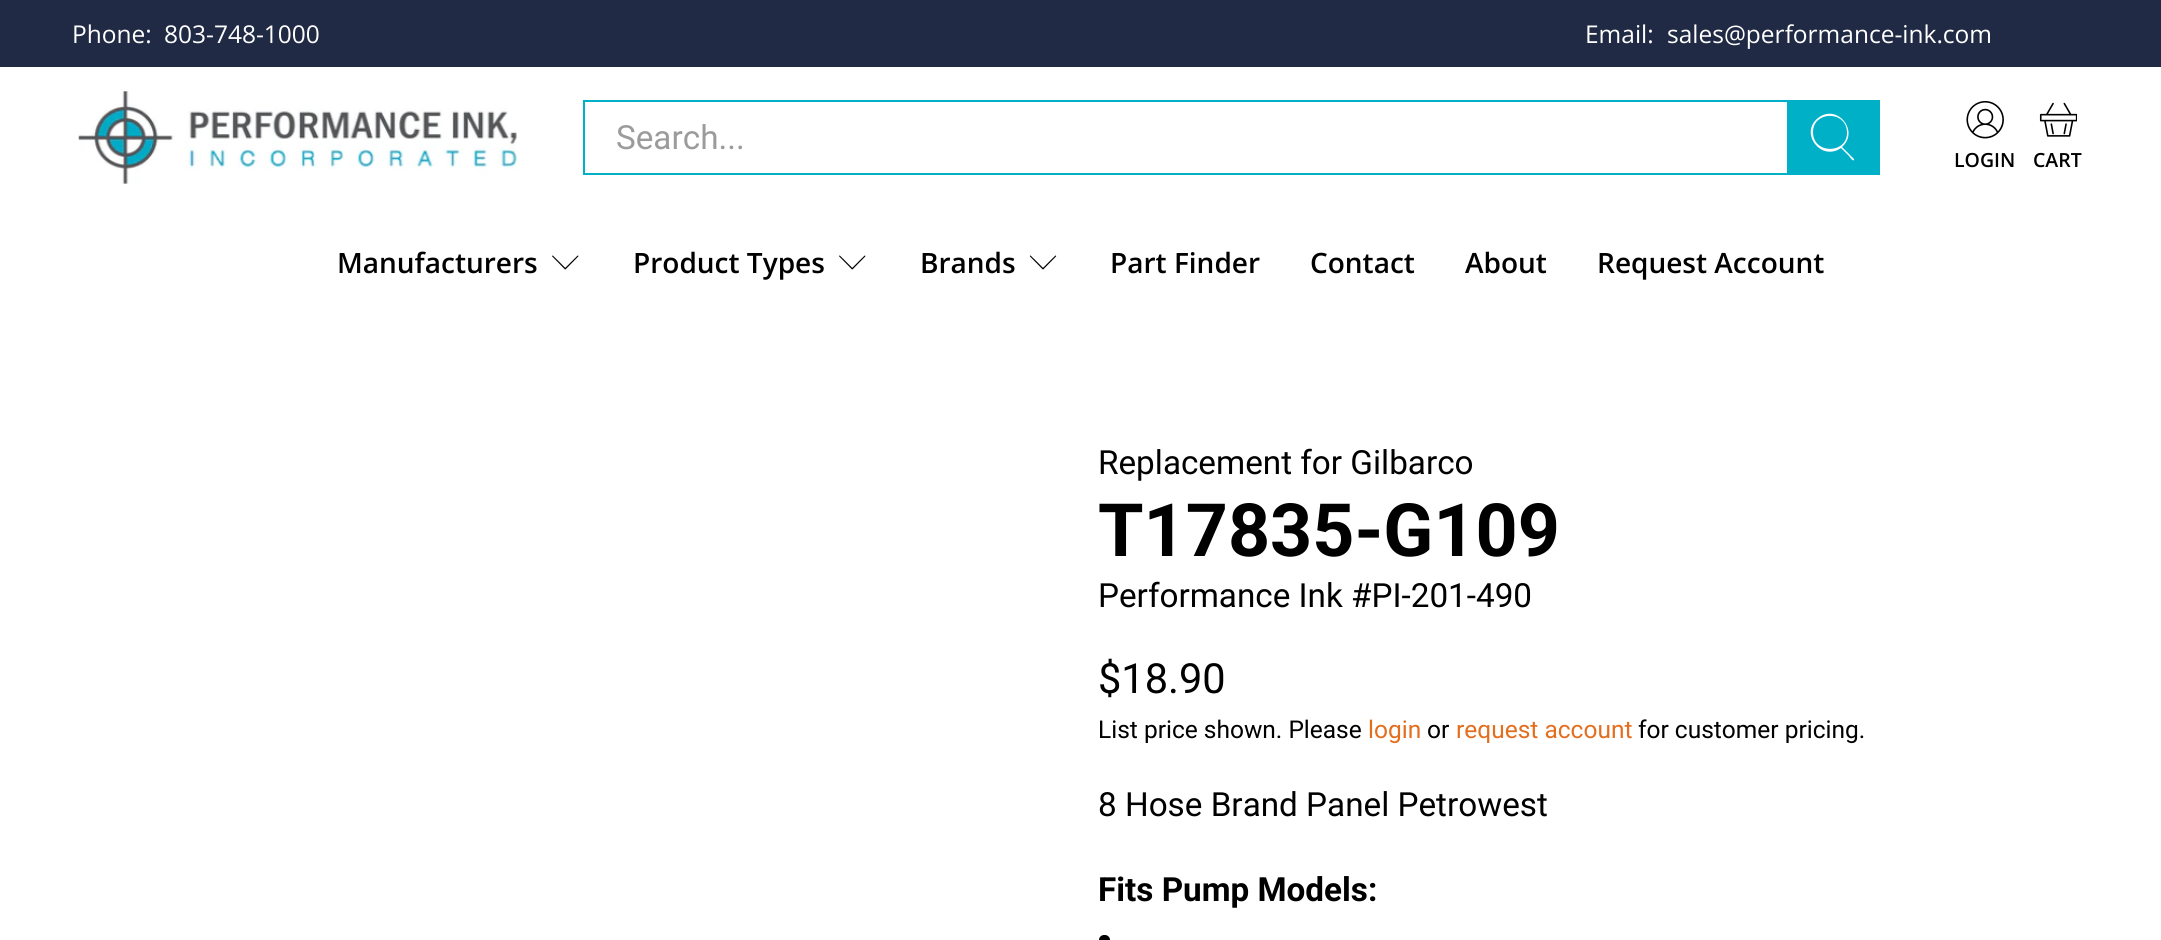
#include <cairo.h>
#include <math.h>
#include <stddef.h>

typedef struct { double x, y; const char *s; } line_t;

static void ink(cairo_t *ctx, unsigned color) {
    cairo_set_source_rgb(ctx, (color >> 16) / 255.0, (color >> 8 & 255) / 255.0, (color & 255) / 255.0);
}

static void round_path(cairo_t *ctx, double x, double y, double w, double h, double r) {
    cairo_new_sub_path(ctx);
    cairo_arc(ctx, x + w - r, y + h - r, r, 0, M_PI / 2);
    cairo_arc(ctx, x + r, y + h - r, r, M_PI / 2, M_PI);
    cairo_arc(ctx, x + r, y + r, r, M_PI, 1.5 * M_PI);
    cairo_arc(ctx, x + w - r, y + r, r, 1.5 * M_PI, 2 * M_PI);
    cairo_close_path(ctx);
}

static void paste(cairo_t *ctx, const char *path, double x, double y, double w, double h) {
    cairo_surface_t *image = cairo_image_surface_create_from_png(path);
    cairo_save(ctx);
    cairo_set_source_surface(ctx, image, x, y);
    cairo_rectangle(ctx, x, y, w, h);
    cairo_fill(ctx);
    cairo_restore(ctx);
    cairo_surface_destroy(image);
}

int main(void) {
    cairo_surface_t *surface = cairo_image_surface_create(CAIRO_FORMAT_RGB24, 2161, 940);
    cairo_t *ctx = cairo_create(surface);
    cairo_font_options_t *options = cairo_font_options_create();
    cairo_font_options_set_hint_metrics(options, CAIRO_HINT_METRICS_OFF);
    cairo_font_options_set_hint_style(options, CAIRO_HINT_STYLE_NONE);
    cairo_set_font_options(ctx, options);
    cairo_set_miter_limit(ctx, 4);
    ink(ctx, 0xFFFFFF);
    cairo_paint(ctx);
    ink(ctx, 0x202A44);
    cairo_rectangle(ctx, 0, 0, 2161, 67);
    cairo_fill(ctx);
    cairo_select_font_face(ctx, "Open Sans", CAIRO_FONT_SLANT_NORMAL, CAIRO_FONT_WEIGHT_NORMAL);
    cairo_set_font_size(ctx, 24.5);
    ink(ctx, 0xFFFFFF);
    {
        static const line_t items[] = {
            {72, 43, "Phone:"},
            {164, 43, "803-748-1000"},
            {1585, 43, "Email:"},
            {1667, 43, "sales@performance-ink.com"},
        };
        for (size_t i = 0; i < sizeof items / sizeof *items; i++) {
            cairo_move_to(ctx, items[i].x, items[i].y);
            cairo_show_text(ctx, items[i].s);
        }
    }
    paste(ctx, "media/1.png", 78, 91, 439, 93);
    cairo_rectangle(ctx, 584, 101, 1204, 73);
    ink(ctx, 0x00B0C7);
    cairo_stroke(ctx);
    cairo_select_font_face(ctx, "Roboto", CAIRO_FONT_SLANT_NORMAL, CAIRO_FONT_WEIGHT_NORMAL);
    cairo_set_font_size(ctx, 33.25);
    ink(ctx, 0x9B9B9B);
    cairo_move_to(ctx, 616, 149);
    cairo_show_text(ctx, "Search...");
    ink(ctx, 0x00B0C7);
    cairo_rectangle(ctx, 1789, 100, 91, 75);
    cairo_fill(ctx);
    ink(ctx, 0xFFFFFF);
    cairo_new_path(ctx);
    cairo_move_to(ctx, 1854, 159);
    cairo_line_to(ctx, 1842, 147);
    cairo_curve_to(ctx, 1860, 131, 1837, 103, 1818, 118);
    cairo_curve_to(ctx, 1799, 133, 1821, 162, 1841, 148);
    cairo_line_to(ctx, 1849, 156);
    cairo_curve_to(ctx, 1849, 156, 1853, 162, 1854, 160);
    cairo_close_path(ctx);
    cairo_move_to(ctx, 1813, 132);
    cairo_curve_to(ctx, 1813, 111, 1846, 110, 1847, 132);
    cairo_curve_to(ctx, 1848, 154, 1813, 155, 1813, 132);
    cairo_close_path(ctx);
    cairo_fill(ctx);
    paste(ctx, "media/2.png", 1966, 101, 38, 38);
    cairo_select_font_face(ctx, "Open Sans SemiBold", CAIRO_FONT_SLANT_NORMAL, CAIRO_FONT_WEIGHT_NORMAL);
    cairo_set_font_size(ctx, 19.5);
    ink(ctx, 0x000000);
    cairo_move_to(ctx, 1954, 167);
    cairo_show_text(ctx, "LOGIN");
    paste(ctx, "media/3.png", 2039, 102, 38, 35);
    cairo_move_to(ctx, 2033, 167);
    cairo_show_text(ctx, "CART");
    cairo_set_font_size(ctx, 28);
    cairo_move_to(ctx, 337, 273);
    cairo_show_text(ctx, "Manufacturers");
    paste(ctx, "media/4.png", 552, 255, 27, 15);
    cairo_move_to(ctx, 633, 273);
    cairo_show_text(ctx, "Product Types");
    paste(ctx, "media/4.png", 839, 255, 27, 15);
    cairo_move_to(ctx, 920, 273);
    cairo_show_text(ctx, "Brands");
    paste(ctx, "media/5.png", 1029, 255, 28, 15);
    {
        static const line_t items[] = {
            {1110, 273, "Part Finder"},
            {1310, 273, "Contact"},
            {1465, 273, "About"},
            {1597, 273, "Request Account"},
        };
        for (size_t i = 0; i < sizeof items / sizeof *items; i++) {
            cairo_move_to(ctx, items[i].x, items[i].y);
            cairo_show_text(ctx, items[i].s);
        }
    }
    cairo_select_font_face(ctx, "Roboto", CAIRO_FONT_SLANT_NORMAL, CAIRO_FONT_WEIGHT_NORMAL);
    cairo_set_font_size(ctx, 33.25);
    cairo_move_to(ctx, 1098, 474);
    cairo_show_text(ctx, "Replacement for Gilbarco");
    cairo_select_font_face(ctx, "Roboto", CAIRO_FONT_SLANT_NORMAL, CAIRO_FONT_WEIGHT_BOLD);
    cairo_set_font_size(ctx, 73.5);
    cairo_move_to(ctx, 1098, 556);
    cairo_show_text(ctx, "T17835-G109");
    cairo_select_font_face(ctx, "Roboto", CAIRO_FONT_SLANT_NORMAL, CAIRO_FONT_WEIGHT_NORMAL);
    cairo_set_font_size(ctx, 33.25);
    cairo_move_to(ctx, 1098, 607);
    cairo_show_text(ctx, "Performance Ink #PI-201-490");
    cairo_set_font_size(ctx, 41.5);
    cairo_move_to(ctx, 1098, 693);
    cairo_show_text(ctx, "$18.90");
    cairo_set_font_size(ctx, 24.5);
    cairo_move_to(ctx, 1098, 738);
    cairo_show_text(ctx, "List price shown. Please");
    ink(ctx, 0xE36E1E);
    cairo_move_to(ctx, 1368, 738);
    cairo_show_text(ctx, "login");
    ink(ctx, 0x000000);
    cairo_move_to(ctx, 1427, 738);
    cairo_show_text(ctx, "or");
    ink(ctx, 0xE36E1E);
    cairo_move_to(ctx, 1456, 738);
    cairo_show_text(ctx, "request account");
    ink(ctx, 0x000000);
    cairo_move_to(ctx, 1638, 738);
    cairo_show_text(ctx, "for customer pricing.");
    cairo_set_font_size(ctx, 33.25);
    cairo_move_to(ctx, 1098, 816);
    cairo_show_text(ctx, "8 Hose Brand Panel Petrowest");
    cairo_select_font_face(ctx, "Roboto", CAIRO_FONT_SLANT_NORMAL, CAIRO_FONT_WEIGHT_BOLD);
    cairo_move_to(ctx, 1098, 901);
    cairo_show_text(ctx, "Fits Pump Models:");
    round_path(ctx, 1099, 935, 11, 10, 5);
    cairo_fill(ctx);
    cairo_surface_write_to_png(surface, "image.png");
    cairo_font_options_destroy(options);
    cairo_destroy(ctx);
    cairo_surface_destroy(surface);
    return 0;
}
